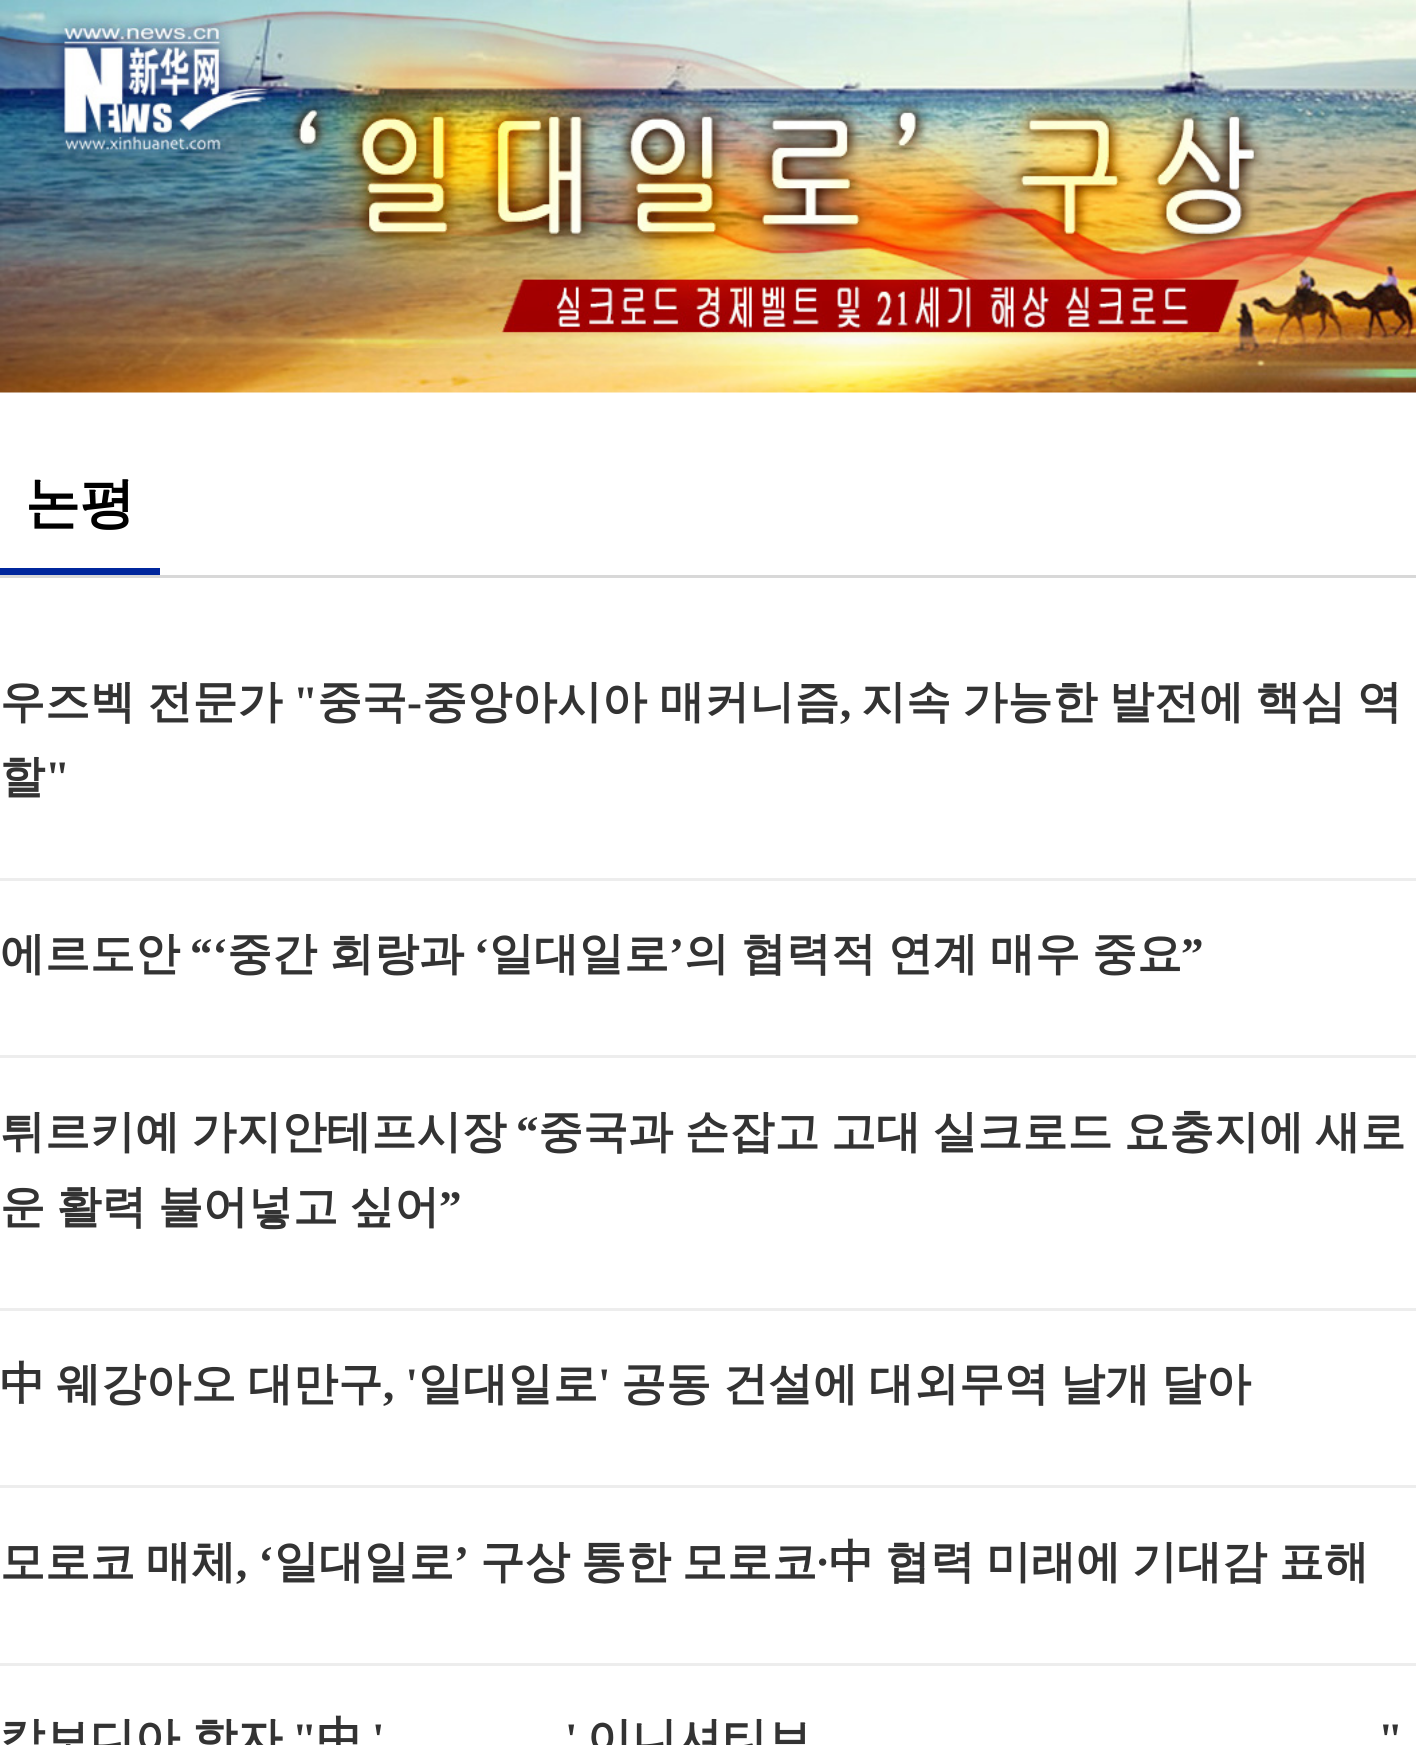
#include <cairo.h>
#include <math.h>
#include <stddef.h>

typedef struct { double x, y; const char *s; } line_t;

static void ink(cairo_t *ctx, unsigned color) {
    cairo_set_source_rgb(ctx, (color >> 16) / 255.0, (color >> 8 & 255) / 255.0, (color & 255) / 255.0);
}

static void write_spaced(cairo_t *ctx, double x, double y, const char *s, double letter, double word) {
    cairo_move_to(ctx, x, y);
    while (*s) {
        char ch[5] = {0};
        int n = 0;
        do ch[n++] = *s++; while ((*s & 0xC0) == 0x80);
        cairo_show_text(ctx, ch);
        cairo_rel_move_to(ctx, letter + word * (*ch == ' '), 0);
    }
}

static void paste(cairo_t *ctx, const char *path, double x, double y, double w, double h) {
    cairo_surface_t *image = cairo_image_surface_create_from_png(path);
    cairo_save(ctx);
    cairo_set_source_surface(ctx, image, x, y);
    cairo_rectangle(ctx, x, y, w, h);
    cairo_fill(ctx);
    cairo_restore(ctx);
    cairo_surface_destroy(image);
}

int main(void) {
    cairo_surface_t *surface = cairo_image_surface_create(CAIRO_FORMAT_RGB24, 1416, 1745);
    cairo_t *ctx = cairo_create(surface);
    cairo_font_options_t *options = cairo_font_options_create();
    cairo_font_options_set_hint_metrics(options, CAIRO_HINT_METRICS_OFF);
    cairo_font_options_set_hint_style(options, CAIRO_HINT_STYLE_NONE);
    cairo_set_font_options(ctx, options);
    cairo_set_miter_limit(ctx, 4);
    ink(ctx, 0xFFFFFF);
    cairo_paint(ctx);
    paste(ctx, "media/1.png", 0, 0, 1416, 393);
    ink(ctx, 0xD8D8D8);
    cairo_rectangle(ctx, 0, 575, 1416, 3);
    cairo_fill(ctx);
    ink(ctx, 0x00269D);
    cairo_rectangle(ctx, 0, 568, 160, 7);
    cairo_fill(ctx);
    cairo_select_font_face(ctx, "WenQuanYi Zen Hei", CAIRO_FONT_SLANT_NORMAL, CAIRO_FONT_WEIGHT_BOLD);
    cairo_set_font_size(ctx, 55);
    ink(ctx, 0x000000);
    cairo_move_to(ctx, 25, 522);
    cairo_show_text(ctx, "논평");
    ink(ctx, 0xEDEDED);
    cairo_rectangle(ctx, 0, 878, 1416, 3);
    cairo_fill(ctx);
    cairo_set_font_size(ctx, 45);
    ink(ctx, 0x333333);
    write_spaced(ctx, 0, 717, "우즈벡 전문가", 0, -1);
    cairo_select_font_face(ctx, "Liberation Serif", CAIRO_FONT_SLANT_NORMAL, CAIRO_FONT_WEIGHT_BOLD);
    cairo_move_to(ctx, 293, 717);
    cairo_show_text(ctx, "\"");
    cairo_select_font_face(ctx, "WenQuanYi Zen Hei", CAIRO_FONT_SLANT_NORMAL, CAIRO_FONT_WEIGHT_BOLD);
    cairo_move_to(ctx, 317, 717);
    cairo_show_text(ctx, "중국");
    write_spaced(ctx, 422, 717, "중앙아시아 매커니즘", 0, -1);
    write_spaced(ctx, 861, 717, "지속 가능한 발전에 핵심 역", 0, -2);
    cairo_select_font_face(ctx, "Liberation Serif", CAIRO_FONT_SLANT_NORMAL, CAIRO_FONT_WEIGHT_BOLD);
    cairo_move_to(ctx, 407, 717);
    cairo_show_text(ctx, "-");
    cairo_move_to(ctx, 840, 717);
    cairo_show_text(ctx, ",");
    cairo_select_font_face(ctx, "WenQuanYi Zen Hei", CAIRO_FONT_SLANT_NORMAL, CAIRO_FONT_WEIGHT_BOLD);
    cairo_move_to(ctx, 0, 792);
    cairo_show_text(ctx, "할");
    cairo_select_font_face(ctx, "Liberation Serif", CAIRO_FONT_SLANT_NORMAL, CAIRO_FONT_WEIGHT_BOLD);
    cairo_move_to(ctx, 45, 792);
    cairo_show_text(ctx, "\"");
    ink(ctx, 0xEDEDED);
    cairo_rectangle(ctx, 0, 1055, 1416, 3);
    cairo_fill(ctx);
    cairo_select_font_face(ctx, "WenQuanYi Zen Hei", CAIRO_FONT_SLANT_NORMAL, CAIRO_FONT_WEIGHT_BOLD);
    ink(ctx, 0x333333);
    cairo_move_to(ctx, 0, 969);
    cairo_show_text(ctx, "에르도안");
    cairo_select_font_face(ctx, "Liberation Serif", CAIRO_FONT_SLANT_NORMAL, CAIRO_FONT_WEIGHT_BOLD);
    cairo_move_to(ctx, 190, 969);
    cairo_show_text(ctx, "“‘");
    cairo_select_font_face(ctx, "WenQuanYi Zen Hei", CAIRO_FONT_SLANT_NORMAL, CAIRO_FONT_WEIGHT_BOLD);
    write_spaced(ctx, 227, 969, "중간 회랑과", 0, -1.5);
    cairo_select_font_face(ctx, "Liberation Serif", CAIRO_FONT_SLANT_NORMAL, CAIRO_FONT_WEIGHT_BOLD);
    cairo_move_to(ctx, 474, 969);
    cairo_show_text(ctx, "‘");
    cairo_select_font_face(ctx, "WenQuanYi Zen Hei", CAIRO_FONT_SLANT_NORMAL, CAIRO_FONT_WEIGHT_BOLD);
    cairo_move_to(ctx, 489, 969);
    cairo_show_text(ctx, "일대일로");
    cairo_select_font_face(ctx, "Liberation Serif", CAIRO_FONT_SLANT_NORMAL, CAIRO_FONT_WEIGHT_BOLD);
    cairo_move_to(ctx, 669, 969);
    cairo_show_text(ctx, "’");
    cairo_select_font_face(ctx, "WenQuanYi Zen Hei", CAIRO_FONT_SLANT_NORMAL, CAIRO_FONT_WEIGHT_BOLD);
    write_spaced(ctx, 684, 969, "의 협력적 연계 매우 중요", 0, -1.5);
    cairo_select_font_face(ctx, "Liberation Serif", CAIRO_FONT_SLANT_NORMAL, CAIRO_FONT_WEIGHT_BOLD);
    cairo_move_to(ctx, 1181, 969);
    cairo_show_text(ctx, "”");
    ink(ctx, 0xEDEDED);
    cairo_rectangle(ctx, 0, 1308, 1416, 3);
    cairo_fill(ctx);
    cairo_select_font_face(ctx, "WenQuanYi Zen Hei", CAIRO_FONT_SLANT_NORMAL, CAIRO_FONT_WEIGHT_BOLD);
    ink(ctx, 0x333333);
    write_spaced(ctx, 0, 1147, "튀르키예 가지안테프시장", 0, -2);
    cairo_select_font_face(ctx, "Liberation Serif", CAIRO_FONT_SLANT_NORMAL, CAIRO_FONT_WEIGHT_BOLD);
    cairo_move_to(ctx, 516, 1147);
    cairo_show_text(ctx, "“");
    cairo_select_font_face(ctx, "WenQuanYi Zen Hei", CAIRO_FONT_SLANT_NORMAL, CAIRO_FONT_WEIGHT_BOLD);
    write_spaced(ctx, 538, 1147, "중국과 손잡고 고대 실크로드 요충지에 새로", 0, -2);
    write_spaced(ctx, 0, 1222, "운 활력 불어넣고 싶어", 0, -2);
    cairo_select_font_face(ctx, "Liberation Serif", CAIRO_FONT_SLANT_NORMAL, CAIRO_FONT_WEIGHT_BOLD);
    cairo_move_to(ctx, 439, 1222);
    cairo_show_text(ctx, "”");
    ink(ctx, 0xEDEDED);
    cairo_rectangle(ctx, 0, 1485, 1416, 3);
    cairo_fill(ctx);
    cairo_select_font_face(ctx, "WenQuanYi Zen Hei", CAIRO_FONT_SLANT_NORMAL, CAIRO_FONT_WEIGHT_BOLD);
    ink(ctx, 0x333333);
    {
        static const line_t items[] = {
            {0, 1399, "中"},
            {56, 1399, "웨강아오"},
            {248, 1399, "대만구"},
        };
        for (size_t i = 0; i < sizeof items / sizeof *items; i++) {
            cairo_move_to(ctx, items[i].x, items[i].y);
            cairo_show_text(ctx, items[i].s);
        }
    }
    cairo_select_font_face(ctx, "Liberation Serif", CAIRO_FONT_SLANT_NORMAL, CAIRO_FONT_WEIGHT_BOLD);
    cairo_move_to(ctx, 383, 1399);
    cairo_show_text(ctx, ", '");
    cairo_select_font_face(ctx, "WenQuanYi Zen Hei", CAIRO_FONT_SLANT_NORMAL, CAIRO_FONT_WEIGHT_BOLD);
    cairo_move_to(ctx, 418, 1399);
    cairo_show_text(ctx, "일대일로");
    cairo_select_font_face(ctx, "Liberation Serif", CAIRO_FONT_SLANT_NORMAL, CAIRO_FONT_WEIGHT_BOLD);
    cairo_move_to(ctx, 598, 1399);
    cairo_show_text(ctx, "'");
    cairo_select_font_face(ctx, "WenQuanYi Zen Hei", CAIRO_FONT_SLANT_NORMAL, CAIRO_FONT_WEIGHT_BOLD);
    {
        static const line_t items[] = {
            {621, 1399, "공동"},
            {723, 1399, "건설에"},
            {869, 1399, "대외무역"},
            {1060, 1399, "날개"},
            {1161, 1399, "달아"},
        };
        for (size_t i = 0; i < sizeof items / sizeof *items; i++) {
            cairo_move_to(ctx, items[i].x, items[i].y);
            cairo_show_text(ctx, items[i].s);
        }
    }
    ink(ctx, 0xEDEDED);
    cairo_rectangle(ctx, 0, 1663, 1416, 3);
    cairo_fill(ctx);
    ink(ctx, 0x333333);
    cairo_move_to(ctx, 0, 1577);
    cairo_show_text(ctx, "모로코");
    cairo_move_to(ctx, 146, 1577);
    cairo_show_text(ctx, "매체");
    cairo_select_font_face(ctx, "Liberation Serif", CAIRO_FONT_SLANT_NORMAL, CAIRO_FONT_WEIGHT_BOLD);
    cairo_move_to(ctx, 236, 1577);
    cairo_show_text(ctx, ", ‘");
    cairo_select_font_face(ctx, "WenQuanYi Zen Hei", CAIRO_FONT_SLANT_NORMAL, CAIRO_FONT_WEIGHT_BOLD);
    cairo_move_to(ctx, 274, 1577);
    cairo_show_text(ctx, "일대일로");
    cairo_select_font_face(ctx, "Liberation Serif", CAIRO_FONT_SLANT_NORMAL, CAIRO_FONT_WEIGHT_BOLD);
    cairo_move_to(ctx, 454, 1577);
    cairo_show_text(ctx, "’");
    cairo_select_font_face(ctx, "WenQuanYi Zen Hei", CAIRO_FONT_SLANT_NORMAL, CAIRO_FONT_WEIGHT_BOLD);
    {
        static const line_t items[] = {
            {480, 1577, "구상"},
            {581, 1577, "통한"},
            {682, 1577, "모로코"},
            {829, 1577, "中"},
            {885, 1577, "협력"},
            {986, 1577, "미래에"},
            {1132, 1577, "기대감"},
            {1279, 1577, "표해"},
        };
        for (size_t i = 0; i < sizeof items / sizeof *items; i++) {
            cairo_move_to(ctx, items[i].x, items[i].y);
            cairo_show_text(ctx, items[i].s);
        }
    }
    cairo_select_font_face(ctx, "Liberation Serif", CAIRO_FONT_SLANT_NORMAL, CAIRO_FONT_WEIGHT_BOLD);
    cairo_move_to(ctx, 817, 1577);
    cairo_show_text(ctx, "∙");
    cairo_select_font_face(ctx, "WenQuanYi Zen Hei", CAIRO_FONT_SLANT_NORMAL, CAIRO_FONT_WEIGHT_BOLD);
    write_spaced(ctx, 0, 1754, "캄보디아 학자", 0, -1);
    cairo_select_font_face(ctx, "Liberation Serif", CAIRO_FONT_SLANT_NORMAL, CAIRO_FONT_WEIGHT_BOLD);
    cairo_move_to(ctx, 292, 1754);
    cairo_show_text(ctx, "\"");
    cairo_select_font_face(ctx, "WenQuanYi Zen Hei", CAIRO_FONT_SLANT_NORMAL, CAIRO_FONT_WEIGHT_BOLD);
    cairo_move_to(ctx, 317, 1754);
    cairo_show_text(ctx, "中");
    cairo_select_font_face(ctx, "Liberation Serif", CAIRO_FONT_SLANT_NORMAL, CAIRO_FONT_WEIGHT_BOLD);
    cairo_move_to(ctx, 372, 1754);
    cairo_show_text(ctx, "'");
    cairo_move_to(ctx, 565, 1754);
    cairo_show_text(ctx, "'");
    cairo_select_font_face(ctx, "WenQuanYi Zen Hei", CAIRO_FONT_SLANT_NORMAL, CAIRO_FONT_WEIGHT_BOLD);
    cairo_move_to(ctx, 587, 1754);
    cairo_show_text(ctx, "이니셔티브");
    cairo_select_font_face(ctx, "Liberation Serif", CAIRO_FONT_SLANT_NORMAL, CAIRO_FONT_WEIGHT_BOLD);
    cairo_move_to(ctx, 1378, 1754);
    cairo_show_text(ctx, "\"");
    cairo_surface_write_to_png(surface, "image.png");
    cairo_font_options_destroy(options);
    cairo_destroy(ctx);
    cairo_surface_destroy(surface);
    return 0;
}
